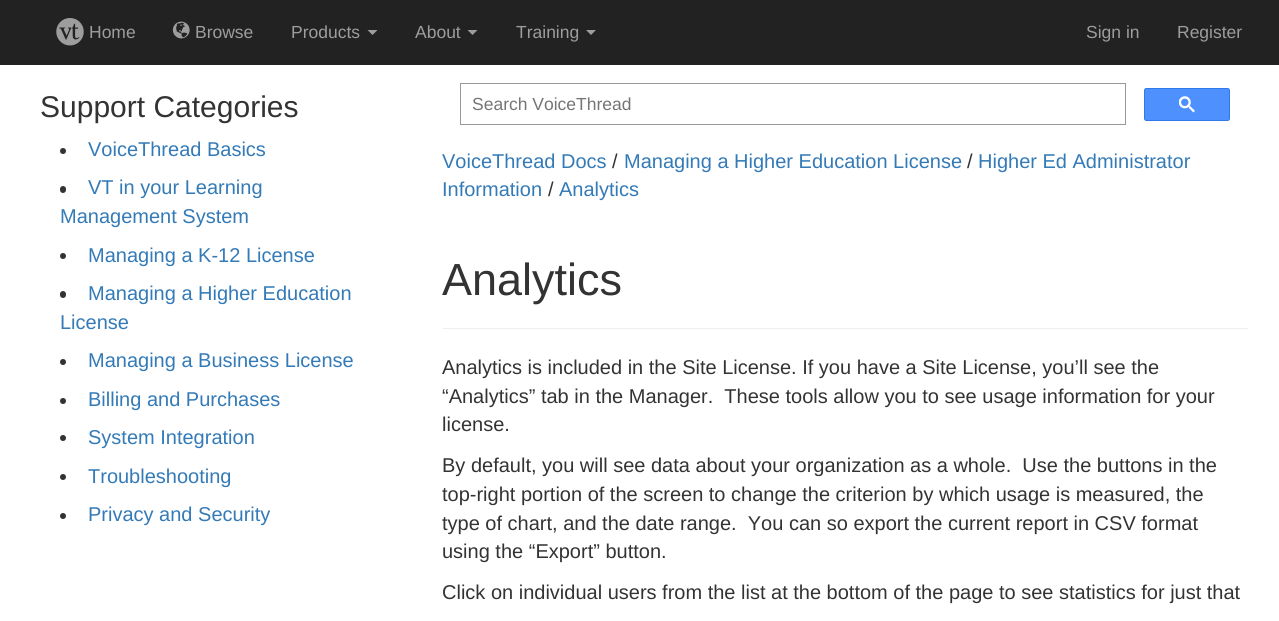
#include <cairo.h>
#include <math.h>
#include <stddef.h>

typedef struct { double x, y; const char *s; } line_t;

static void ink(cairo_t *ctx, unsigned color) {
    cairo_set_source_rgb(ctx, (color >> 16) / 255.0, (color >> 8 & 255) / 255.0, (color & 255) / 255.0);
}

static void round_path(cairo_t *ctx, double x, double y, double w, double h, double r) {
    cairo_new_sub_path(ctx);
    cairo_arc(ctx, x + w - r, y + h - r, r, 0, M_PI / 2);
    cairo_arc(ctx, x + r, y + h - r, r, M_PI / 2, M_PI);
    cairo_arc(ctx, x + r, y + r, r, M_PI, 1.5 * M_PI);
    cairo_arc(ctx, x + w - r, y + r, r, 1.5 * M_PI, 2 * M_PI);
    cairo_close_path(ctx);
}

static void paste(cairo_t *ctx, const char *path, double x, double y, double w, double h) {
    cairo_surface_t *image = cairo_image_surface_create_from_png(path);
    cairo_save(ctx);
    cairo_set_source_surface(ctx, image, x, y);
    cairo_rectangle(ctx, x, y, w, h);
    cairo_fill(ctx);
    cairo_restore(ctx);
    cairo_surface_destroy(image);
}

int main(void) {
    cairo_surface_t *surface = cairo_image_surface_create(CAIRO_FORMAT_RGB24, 1279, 621);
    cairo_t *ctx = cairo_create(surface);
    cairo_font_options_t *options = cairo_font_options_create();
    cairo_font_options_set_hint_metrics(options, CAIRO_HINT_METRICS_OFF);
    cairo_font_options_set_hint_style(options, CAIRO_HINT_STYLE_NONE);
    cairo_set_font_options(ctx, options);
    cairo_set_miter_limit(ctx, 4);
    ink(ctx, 0xFFFFFF);
    cairo_paint(ctx);
    ink(ctx, 0x222222);
    cairo_rectangle(ctx, 0, 0, 1279, 65);
    cairo_fill(ctx);
    paste(ctx, "media/1.png", 56, 18, 28, 28);
    cairo_select_font_face(ctx, "Liberation Sans", CAIRO_FONT_SLANT_NORMAL, CAIRO_FONT_WEIGHT_NORMAL);
    cairo_set_font_size(ctx, 17.5);
    ink(ctx, 0x9D9D9D);
    cairo_move_to(ctx, 89, 38);
    cairo_show_text(ctx, "Home");
    paste(ctx, "media/2.png", 172, 21, 18, 18);
    cairo_move_to(ctx, 195, 38);
    cairo_show_text(ctx, "Browse");
    cairo_move_to(ctx, 291, 38);
    cairo_show_text(ctx, "Products");
    cairo_new_path(ctx);
    cairo_move_to(ctx, 367.5, 30);
    cairo_line_to(ctx, 377.5, 30);
    cairo_line_to(ctx, 372.5, 35);
    cairo_close_path(ctx);
    cairo_fill(ctx);
    cairo_move_to(ctx, 415, 38);
    cairo_show_text(ctx, "About");
    cairo_new_path(ctx);
    cairo_move_to(ctx, 467.5, 30);
    cairo_line_to(ctx, 477.5, 30);
    cairo_line_to(ctx, 472.5, 35);
    cairo_close_path(ctx);
    cairo_fill(ctx);
    cairo_move_to(ctx, 516, 38);
    cairo_show_text(ctx, "Training");
    cairo_new_path(ctx);
    cairo_move_to(ctx, 586, 30);
    cairo_line_to(ctx, 596, 30);
    cairo_line_to(ctx, 591, 35);
    cairo_close_path(ctx);
    cairo_fill(ctx);
    cairo_move_to(ctx, 1086, 38);
    cairo_show_text(ctx, "Sign in");
    cairo_move_to(ctx, 1177, 38);
    cairo_show_text(ctx, "Register");
    cairo_set_font_size(ctx, 30);
    ink(ctx, 0x333333);
    cairo_move_to(ctx, 40, 117);
    cairo_show_text(ctx, "Support Categories");
    cairo_new_path(ctx);
    cairo_arc(ctx, 63, 151, 3, 0, 2 * M_PI);
    cairo_fill(ctx);
    cairo_set_font_size(ctx, 20);
    ink(ctx, 0x337AB7);
    cairo_move_to(ctx, 88, 156);
    cairo_show_text(ctx, "VoiceThread Basics");
    ink(ctx, 0x333333);
    round_path(ctx, 60, 186, 6, 7, 3);
    cairo_fill(ctx);
    ink(ctx, 0x337AB7);
    cairo_move_to(ctx, 88, 194);
    cairo_show_text(ctx, "VT in your Learning");
    cairo_move_to(ctx, 60, 223);
    cairo_show_text(ctx, "Management System");
    ink(ctx, 0x333333);
    cairo_new_path(ctx);
    cairo_arc(ctx, 63, 256, 3, 0, 2 * M_PI);
    cairo_fill(ctx);
    ink(ctx, 0x337AB7);
    cairo_move_to(ctx, 88, 262);
    cairo_show_text(ctx, "Managing a K-12 License");
    ink(ctx, 0x333333);
    round_path(ctx, 60, 291, 6, 7, 3);
    cairo_fill(ctx);
    ink(ctx, 0x337AB7);
    cairo_move_to(ctx, 88, 300);
    cairo_show_text(ctx, "Managing a Higher Education");
    cairo_move_to(ctx, 60, 329);
    cairo_show_text(ctx, "License");
    ink(ctx, 0x333333);
    cairo_new_path(ctx);
    cairo_arc(ctx, 63, 362, 3, 0, 2 * M_PI);
    cairo_fill(ctx);
    ink(ctx, 0x337AB7);
    cairo_move_to(ctx, 88, 367);
    cairo_show_text(ctx, "Managing a Business License");
    ink(ctx, 0x333333);
    cairo_new_path(ctx);
    cairo_arc(ctx, 63, 401, 3, 0, 2 * M_PI);
    cairo_fill(ctx);
    ink(ctx, 0x337AB7);
    cairo_move_to(ctx, 88, 406);
    cairo_show_text(ctx, "Billing and Purchases");
    ink(ctx, 0x333333);
    cairo_new_path(ctx);
    cairo_arc(ctx, 63, 438, 3, 0, 2 * M_PI);
    cairo_fill(ctx);
    ink(ctx, 0x337AB7);
    cairo_move_to(ctx, 88, 444);
    cairo_show_text(ctx, "System Integration");
    ink(ctx, 0x333333);
    cairo_new_path(ctx);
    cairo_arc(ctx, 63, 477, 3, 0, 2 * M_PI);
    cairo_fill(ctx);
    ink(ctx, 0x337AB7);
    cairo_move_to(ctx, 88, 483);
    cairo_show_text(ctx, "Troubleshooting");
    ink(ctx, 0x333333);
    cairo_new_path(ctx);
    cairo_arc(ctx, 63, 516, 3, 0, 2 * M_PI);
    cairo_fill(ctx);
    ink(ctx, 0x337AB7);
    cairo_move_to(ctx, 88, 521);
    cairo_show_text(ctx, "Privacy and Security");
    cairo_rectangle(ctx, 460.5, 83.5, 665, 41);
    ink(ctx, 0x999999);
    cairo_set_line_width(ctx, 1);
    cairo_stroke(ctx);
    cairo_set_font_size(ctx, 17.5);
    ink(ctx, 0x757575);
    cairo_move_to(ctx, 472, 110);
    cairo_show_text(ctx, "Search VoiceThread");
    ink(ctx, 0x4D90FE);
    round_path(ctx, 1144.5, 88.5, 85, 32, 2);
    cairo_fill_preserve(ctx);
    ink(ctx, 0x3079ED);
    cairo_stroke(ctx);
    paste(ctx, "media/3.png", 1179, 96, 16, 17);
    cairo_set_font_size(ctx, 20);
    ink(ctx, 0x337AB7);
    cairo_move_to(ctx, 442, 168);
    cairo_show_text(ctx, "VoiceThread Docs");
    ink(ctx, 0x333333);
    cairo_move_to(ctx, 612, 168);
    cairo_show_text(ctx, "/");
    ink(ctx, 0x337AB7);
    cairo_move_to(ctx, 624, 168);
    cairo_show_text(ctx, "Managing a Higher Education License");
    ink(ctx, 0x333333);
    cairo_move_to(ctx, 967, 168);
    cairo_show_text(ctx, "/");
    ink(ctx, 0x337AB7);
    cairo_move_to(ctx, 978, 168);
    cairo_show_text(ctx, "Higher Ed Administrator");
    cairo_move_to(ctx, 442, 196);
    cairo_show_text(ctx, "Information");
    ink(ctx, 0x333333);
    cairo_move_to(ctx, 548, 196);
    cairo_show_text(ctx, "/");
    ink(ctx, 0x337AB7);
    cairo_move_to(ctx, 559, 196);
    cairo_show_text(ctx, "Analytics");
    ink(ctx, 0xEEEEEE);
    cairo_rectangle(ctx, 443, 328, 805, 1);
    cairo_fill(ctx);
    cairo_set_font_size(ctx, 45);
    ink(ctx, 0x333333);
    cairo_move_to(ctx, 442, 295);
    cairo_show_text(ctx, "Analytics");
    cairo_set_font_size(ctx, 20);
    {
        static const line_t items[] = {
            {442, 374, "Analytics is included in the Site License. If you have a Site License, you’ll see the"},
            {442, 403, "“Analytics” tab in the Manager.  These tools allow you to see usage information for your"},
            {442, 431, "license."},
            {442, 472, "By default, you will see data about your organization as a whole.  Use the buttons in the"},
            {442, 501, "top-right portion of the screen to change the criterion by which usage is measured, the"},
            {442, 530, "type of chart, and the date range.  You can so export the current report in CSV format"},
            {442, 558, "using the “Export” button."},
            {442, 599, "Click on individual users from the list at the bottom of the page to see statistics for just that"},
        };
        for (size_t i = 0; i < sizeof items / sizeof *items; i++) {
            cairo_move_to(ctx, items[i].x, items[i].y);
            cairo_show_text(ctx, items[i].s);
        }
    }
    cairo_surface_write_to_png(surface, "image.png");
    cairo_font_options_destroy(options);
    cairo_destroy(ctx);
    cairo_surface_destroy(surface);
    return 0;
}
